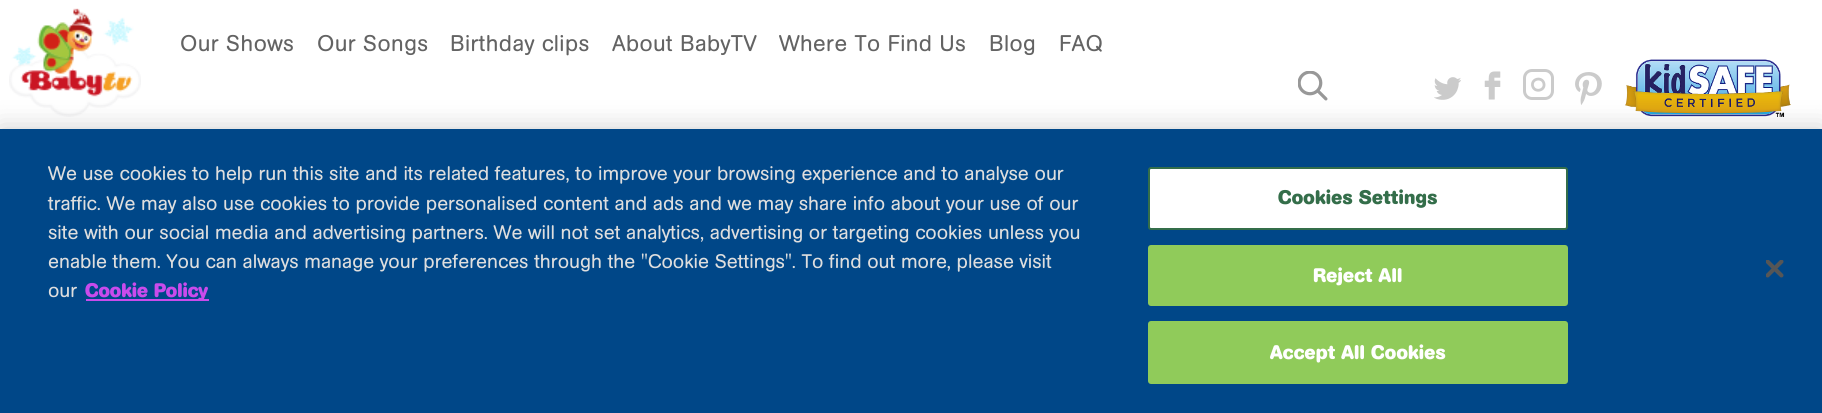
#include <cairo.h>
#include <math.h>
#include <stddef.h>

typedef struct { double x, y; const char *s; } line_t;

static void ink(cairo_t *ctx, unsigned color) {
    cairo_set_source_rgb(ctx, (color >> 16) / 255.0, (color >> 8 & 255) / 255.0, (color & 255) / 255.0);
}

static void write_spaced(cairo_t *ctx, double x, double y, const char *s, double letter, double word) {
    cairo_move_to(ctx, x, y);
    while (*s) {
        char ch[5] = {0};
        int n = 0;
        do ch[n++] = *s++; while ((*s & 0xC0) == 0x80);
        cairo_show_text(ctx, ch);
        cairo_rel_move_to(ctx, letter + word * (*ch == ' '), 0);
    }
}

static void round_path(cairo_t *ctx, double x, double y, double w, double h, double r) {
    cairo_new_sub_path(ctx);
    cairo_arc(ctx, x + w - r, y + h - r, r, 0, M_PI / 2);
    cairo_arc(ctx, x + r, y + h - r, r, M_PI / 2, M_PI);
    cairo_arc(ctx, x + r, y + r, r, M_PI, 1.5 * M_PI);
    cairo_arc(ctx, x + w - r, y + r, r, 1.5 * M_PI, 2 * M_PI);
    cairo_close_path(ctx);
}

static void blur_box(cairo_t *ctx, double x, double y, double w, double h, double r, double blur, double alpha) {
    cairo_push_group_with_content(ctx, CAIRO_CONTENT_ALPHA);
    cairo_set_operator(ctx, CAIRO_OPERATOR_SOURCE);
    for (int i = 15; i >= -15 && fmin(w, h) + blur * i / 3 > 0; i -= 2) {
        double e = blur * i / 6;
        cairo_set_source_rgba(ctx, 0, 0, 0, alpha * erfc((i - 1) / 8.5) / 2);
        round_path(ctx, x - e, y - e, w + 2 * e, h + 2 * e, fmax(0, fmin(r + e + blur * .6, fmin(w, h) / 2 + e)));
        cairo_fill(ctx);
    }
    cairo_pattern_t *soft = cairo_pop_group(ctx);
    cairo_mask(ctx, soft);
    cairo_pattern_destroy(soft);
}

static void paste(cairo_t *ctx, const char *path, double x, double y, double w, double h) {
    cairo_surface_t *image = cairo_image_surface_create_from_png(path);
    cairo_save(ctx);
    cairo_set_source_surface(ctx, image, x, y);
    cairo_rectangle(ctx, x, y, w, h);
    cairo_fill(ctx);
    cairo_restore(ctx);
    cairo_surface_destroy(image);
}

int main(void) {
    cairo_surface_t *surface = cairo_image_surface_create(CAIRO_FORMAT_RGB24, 1822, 413);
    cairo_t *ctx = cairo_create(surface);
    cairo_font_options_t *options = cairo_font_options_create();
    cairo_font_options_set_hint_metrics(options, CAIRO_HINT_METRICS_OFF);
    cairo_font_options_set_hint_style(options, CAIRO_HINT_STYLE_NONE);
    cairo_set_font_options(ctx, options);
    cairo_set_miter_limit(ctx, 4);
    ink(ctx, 0xFFFFFF);
    cairo_paint(ctx);
    paste(ctx, "media/1.png", 9, 8, 132, 109);
    cairo_select_font_face(ctx, "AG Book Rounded", CAIRO_FONT_SLANT_NORMAL, CAIRO_FONT_WEIGHT_NORMAL);
    cairo_set_font_size(ctx, 22.5);
    ink(ctx, 0x636363);
    {
        static const line_t items[] = {
            {180, 51, "Our Shows"},
            {317, 51, "Our Songs"},
            {450, 51, "Birthday clips"},
            {612, 51, "About BabyTV"},
            {779, 51, "Where To Find Us"},
            {989, 51, "Blog"},
            {1059, 51, "FAQ"},
        };
        for (size_t i = 0; i < sizeof items / sizeof *items; i++) {
            write_spaced(ctx, items[i].x, items[i].y, items[i].s, 0.4, 0);
        }
    }
    paste(ctx, "media/2.png", 1298, 71, 30, 30);
    paste(ctx, "media/3.png", 1434, 77, 27, 23);
    paste(ctx, "media/4.png", 1484, 71, 17, 29);
    round_path(ctx, 1524.5, 70.5, 28, 28, 7.5);
    ink(ctx, 0xCBCBCB);
    cairo_set_line_width(ctx, 3);
    cairo_stroke(ctx);
    cairo_new_path(ctx);
    cairo_move_to(ctx, 1544, 84);
    cairo_curve_to(ctx, 1545, 91, 1534, 93, 1532.5, 85.5);
    cairo_curve_to(ctx, 1531.5, 78, 1543, 76.5, 1544, 84);
    cairo_close_path(ctx);
    cairo_set_line_width(ctx, 2.8);
    cairo_set_line_cap(ctx, CAIRO_LINE_CAP_ROUND);
    cairo_set_line_join(ctx, CAIRO_LINE_JOIN_ROUND);
    cairo_stroke(ctx);
    paste(ctx, "media/5.png", 1575, 72, 27, 33);
    paste(ctx, "media/6.png", 1625, 59, 166, 58);
    ink(ctx, 0x000000);
    blur_box(ctx, 0, 129, 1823, 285, 0, 13.5, 0.2);
    ink(ctx, 0x004788);
    cairo_rectangle(ctx, 0, 129, 1822, 284);
    cairo_fill(ctx);
    cairo_set_font_size(ctx, 19.5);
    ink(ctx, 0xDEDEDE);
    {
        static const line_t items[] = {
            {48, 180, "We use cookies to help run this site and its related features, to improve your browsing experience and to analyse our"},
            {48, 210, "traffic. We may also use cookies to provide personalised content and ads and we may share info about your use of our"},
            {48, 239, "site with our social media and advertising partners. We will not set analytics, advertising or targeting cookies unless you"},
            {48, 268, "enable them. You can always manage your preferences through the \"Cookie Settings\". To find out more, please visit"},
            {48, 297, "our"},
        };
        for (size_t i = 0; i < sizeof items / sizeof *items; i++) {
            cairo_move_to(ctx, items[i].x, items[i].y);
            cairo_show_text(ctx, items[i].s);
        }
    }
    ink(ctx, 0xC94BEC);
    cairo_rectangle(ctx, 86, 299, 123, 2);
    cairo_fill(ctx);
    cairo_select_font_face(ctx, "AG Book Rounded", CAIRO_FONT_SLANT_NORMAL, CAIRO_FONT_WEIGHT_BOLD);
    cairo_move_to(ctx, 85, 297);
    cairo_show_text(ctx, "Cookie Policy");
    ink(ctx, 0xFFFFFF);
    round_path(ctx, 1149, 168, 418, 61, 2);
    cairo_fill_preserve(ctx);
    ink(ctx, 0x346E4A);
    cairo_set_line_width(ctx, 2);
    cairo_set_line_cap(ctx, CAIRO_LINE_CAP_BUTT);
    cairo_set_line_join(ctx, CAIRO_LINE_JOIN_MITER);
    cairo_stroke(ctx);
    write_spaced(ctx, 1278, 204, "Cookies Settings", 0.25, 0);
    ink(ctx, 0x90CB5A);
    round_path(ctx, 1149, 246, 418, 59, 2);
    cairo_fill_preserve(ctx);
    cairo_stroke(ctx);
    ink(ctx, 0xFFFFFF);
    write_spaced(ctx, 1313, 282, "Reject All", 0.25, 0);
    ink(ctx, 0x90CB5A);
    round_path(ctx, 1149, 322, 418, 61, 2);
    cairo_fill_preserve(ctx);
    cairo_stroke(ctx);
    ink(ctx, 0xFFFFFF);
    write_spaced(ctx, 1270, 359, "Accept All Cookies", 0.25, 0);
    paste(ctx, "media/7.png", 1766, 260, 18, 18);
    cairo_surface_write_to_png(surface, "image.png");
    cairo_font_options_destroy(options);
    cairo_destroy(ctx);
    cairo_surface_destroy(surface);
    return 0;
}
